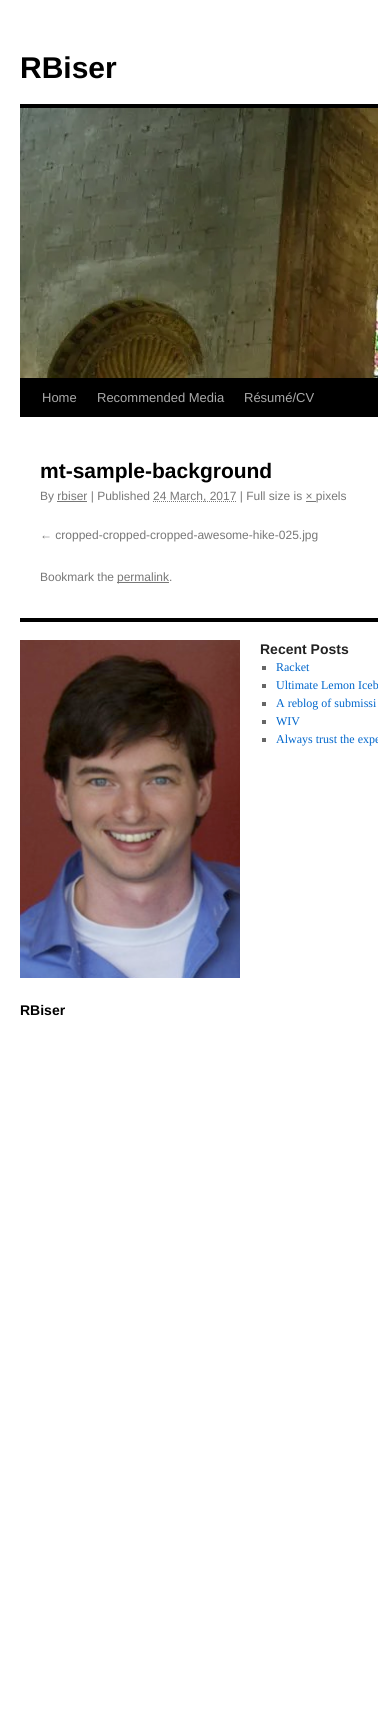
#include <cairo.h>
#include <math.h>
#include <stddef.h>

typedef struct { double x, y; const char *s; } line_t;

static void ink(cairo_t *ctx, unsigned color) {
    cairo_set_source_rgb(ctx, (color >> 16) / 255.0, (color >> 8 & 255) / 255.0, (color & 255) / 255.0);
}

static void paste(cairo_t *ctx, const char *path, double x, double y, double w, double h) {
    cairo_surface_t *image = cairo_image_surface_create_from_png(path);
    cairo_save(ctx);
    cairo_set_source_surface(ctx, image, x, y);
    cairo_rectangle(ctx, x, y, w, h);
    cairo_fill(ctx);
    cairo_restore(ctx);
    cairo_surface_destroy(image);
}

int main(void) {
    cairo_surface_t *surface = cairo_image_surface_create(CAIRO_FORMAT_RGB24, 378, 1713);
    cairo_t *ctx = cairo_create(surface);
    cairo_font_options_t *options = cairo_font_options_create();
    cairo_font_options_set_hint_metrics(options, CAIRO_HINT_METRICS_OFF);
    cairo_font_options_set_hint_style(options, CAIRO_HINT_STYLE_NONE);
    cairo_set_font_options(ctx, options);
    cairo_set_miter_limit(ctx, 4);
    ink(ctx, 0xFFFFFF);
    cairo_paint(ctx);
    cairo_select_font_face(ctx, "Liberation Sans", CAIRO_FONT_SLANT_NORMAL, CAIRO_FONT_WEIGHT_BOLD);
    cairo_set_font_size(ctx, 30);
    ink(ctx, 0x000000);
    cairo_move_to(ctx, 20, 78);
    cairo_show_text(ctx, "RBiser");
    cairo_rectangle(ctx, 20, 104, 358, 4);
    cairo_fill(ctx);
    cairo_rectangle(ctx, 20, 378, 358, 39);
    cairo_fill(ctx);
    paste(ctx, "media/1.png", 20, 108, 358, 270);
    cairo_select_font_face(ctx, "Liberation Sans", CAIRO_FONT_SLANT_NORMAL, CAIRO_FONT_WEIGHT_NORMAL);
    cairo_set_font_size(ctx, 13);
    ink(ctx, 0xAAAAAA);
    {
        static const line_t items[] = {
            {42, 402, "Home"},
            {97, 402, "Recommended Media"},
            {244, 402, "Résumé/CV"},
        };
        for (size_t i = 0; i < sizeof items / sizeof *items; i++) {
            cairo_move_to(ctx, items[i].x, items[i].y);
            cairo_show_text(ctx, items[i].s);
        }
    }
    cairo_select_font_face(ctx, "Liberation Sans", CAIRO_FONT_SLANT_NORMAL, CAIRO_FONT_WEIGHT_BOLD);
    cairo_set_font_size(ctx, 21);
    ink(ctx, 0x000000);
    cairo_move_to(ctx, 40, 478);
    cairo_show_text(ctx, "mt-sample-background");
    cairo_select_font_face(ctx, "Liberation Sans", CAIRO_FONT_SLANT_NORMAL, CAIRO_FONT_WEIGHT_NORMAL);
    cairo_set_font_size(ctx, 12);
    ink(ctx, 0x777777);
    cairo_move_to(ctx, 40, 500);
    cairo_show_text(ctx, "By rbiser | Published");
    cairo_new_path(ctx);
    cairo_move_to(ctx, 153, 501.5);
    cairo_line_to(ctx, 236.5, 501.5);
    cairo_set_line_width(ctx, 1);
    cairo_set_dash(ctx, (double[]){1, 1}, 2, 0);
    cairo_stroke(ctx);
    cairo_move_to(ctx, 153, 500);
    cairo_show_text(ctx, "24 March, 2017 | Full size is × pixels");
    cairo_rectangle(ctx, 57, 501, 30, 1);
    cairo_fill(ctx);
    cairo_rectangle(ctx, 306, 501, 10, 1);
    cairo_fill(ctx);
    cairo_move_to(ctx, 40, 539);
    cairo_show_text(ctx, "← cropped-cropped-cropped-awesome-hike-025.jpg");
    cairo_move_to(ctx, 40, 581);
    cairo_show_text(ctx, "Bookmark the");
    cairo_rectangle(ctx, 117, 582, 52, 1);
    cairo_fill(ctx);
    cairo_move_to(ctx, 117, 581);
    cairo_show_text(ctx, "permalink.");
    ink(ctx, 0x000000);
    cairo_rectangle(ctx, 20, 618, 358, 4);
    cairo_fill(ctx);
    paste(ctx, "media/2.png", 20, 640, 220, 338);
    cairo_select_font_face(ctx, "Liberation Sans", CAIRO_FONT_SLANT_NORMAL, CAIRO_FONT_WEIGHT_BOLD);
    cairo_set_font_size(ctx, 14);
    ink(ctx, 0x222222);
    cairo_move_to(ctx, 260, 654);
    cairo_show_text(ctx, "Recent Posts");
    ink(ctx, 0x666666);
    cairo_rectangle(ctx, 262, 666, 4, 4);
    cairo_fill(ctx);
    cairo_select_font_face(ctx, "Liberation Serif", CAIRO_FONT_SLANT_NORMAL, CAIRO_FONT_WEIGHT_NORMAL);
    cairo_set_font_size(ctx, 12);
    ink(ctx, 0x0066CC);
    cairo_move_to(ctx, 276, 671);
    cairo_show_text(ctx, "Racket");
    ink(ctx, 0x666666);
    cairo_rectangle(ctx, 262, 684, 4, 4);
    cairo_fill(ctx);
    ink(ctx, 0x0066CC);
    cairo_move_to(ctx, 276, 689);
    cairo_show_text(ctx, "Ultimate Lemon Iceb");
    ink(ctx, 0x666666);
    cairo_rectangle(ctx, 262, 702, 4, 4);
    cairo_fill(ctx);
    ink(ctx, 0x0066CC);
    cairo_move_to(ctx, 276, 707);
    cairo_show_text(ctx, "A reblog of submissi");
    ink(ctx, 0x666666);
    cairo_rectangle(ctx, 262, 720, 4, 4);
    cairo_fill(ctx);
    ink(ctx, 0x0066CC);
    cairo_move_to(ctx, 276, 725);
    cairo_show_text(ctx, "WIV");
    ink(ctx, 0x666666);
    cairo_rectangle(ctx, 262, 738, 4, 4);
    cairo_fill(ctx);
    ink(ctx, 0x0066CC);
    cairo_move_to(ctx, 276, 743);
    cairo_show_text(ctx, "Always trust the expe");
    cairo_select_font_face(ctx, "Liberation Sans", CAIRO_FONT_SLANT_NORMAL, CAIRO_FONT_WEIGHT_BOLD);
    cairo_set_font_size(ctx, 14);
    ink(ctx, 0x000000);
    cairo_move_to(ctx, 20, 1015);
    cairo_show_text(ctx, "RBiser");
    cairo_surface_write_to_png(surface, "image.png");
    cairo_font_options_destroy(options);
    cairo_destroy(ctx);
    cairo_surface_destroy(surface);
    return 0;
}
